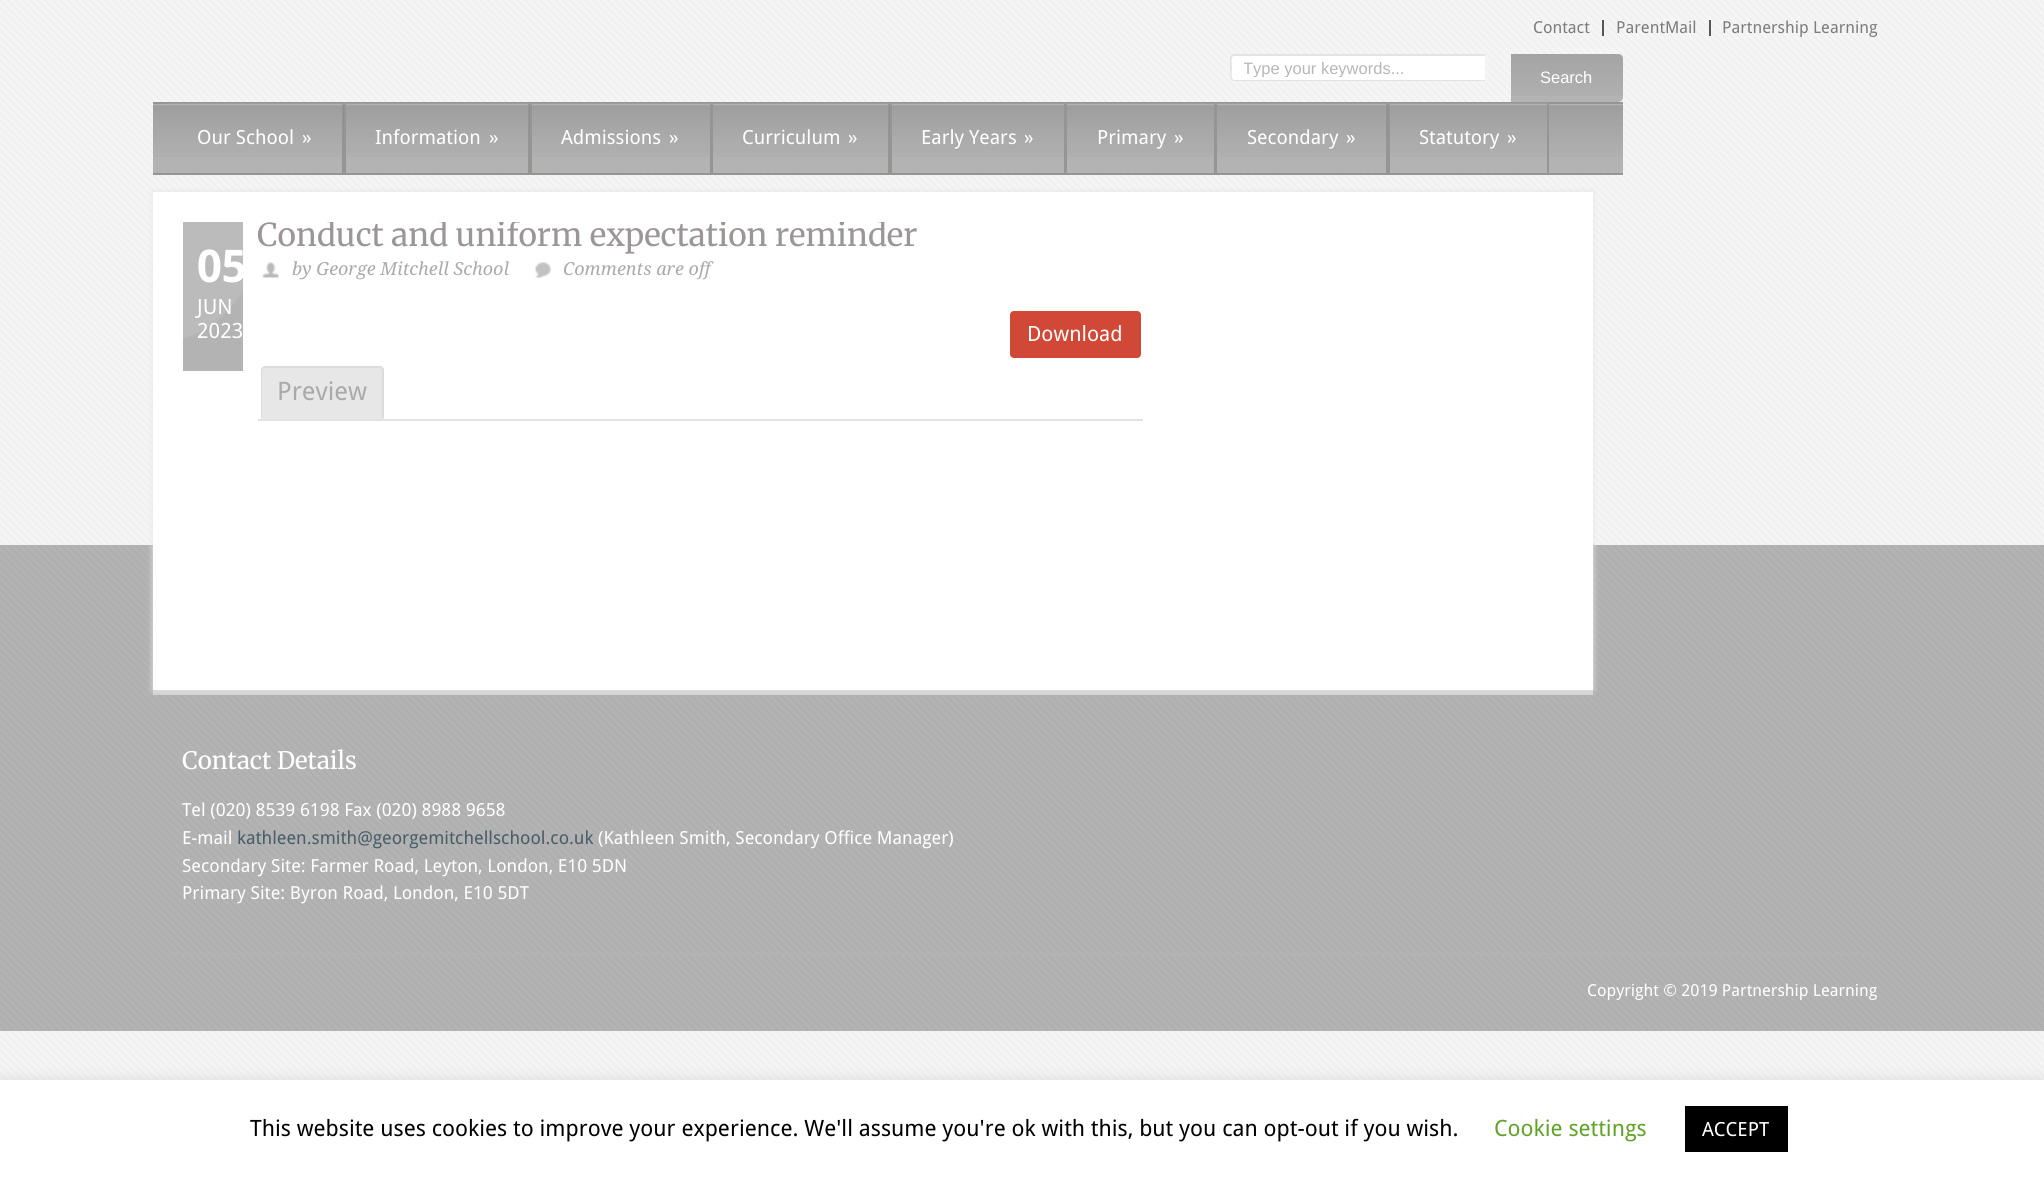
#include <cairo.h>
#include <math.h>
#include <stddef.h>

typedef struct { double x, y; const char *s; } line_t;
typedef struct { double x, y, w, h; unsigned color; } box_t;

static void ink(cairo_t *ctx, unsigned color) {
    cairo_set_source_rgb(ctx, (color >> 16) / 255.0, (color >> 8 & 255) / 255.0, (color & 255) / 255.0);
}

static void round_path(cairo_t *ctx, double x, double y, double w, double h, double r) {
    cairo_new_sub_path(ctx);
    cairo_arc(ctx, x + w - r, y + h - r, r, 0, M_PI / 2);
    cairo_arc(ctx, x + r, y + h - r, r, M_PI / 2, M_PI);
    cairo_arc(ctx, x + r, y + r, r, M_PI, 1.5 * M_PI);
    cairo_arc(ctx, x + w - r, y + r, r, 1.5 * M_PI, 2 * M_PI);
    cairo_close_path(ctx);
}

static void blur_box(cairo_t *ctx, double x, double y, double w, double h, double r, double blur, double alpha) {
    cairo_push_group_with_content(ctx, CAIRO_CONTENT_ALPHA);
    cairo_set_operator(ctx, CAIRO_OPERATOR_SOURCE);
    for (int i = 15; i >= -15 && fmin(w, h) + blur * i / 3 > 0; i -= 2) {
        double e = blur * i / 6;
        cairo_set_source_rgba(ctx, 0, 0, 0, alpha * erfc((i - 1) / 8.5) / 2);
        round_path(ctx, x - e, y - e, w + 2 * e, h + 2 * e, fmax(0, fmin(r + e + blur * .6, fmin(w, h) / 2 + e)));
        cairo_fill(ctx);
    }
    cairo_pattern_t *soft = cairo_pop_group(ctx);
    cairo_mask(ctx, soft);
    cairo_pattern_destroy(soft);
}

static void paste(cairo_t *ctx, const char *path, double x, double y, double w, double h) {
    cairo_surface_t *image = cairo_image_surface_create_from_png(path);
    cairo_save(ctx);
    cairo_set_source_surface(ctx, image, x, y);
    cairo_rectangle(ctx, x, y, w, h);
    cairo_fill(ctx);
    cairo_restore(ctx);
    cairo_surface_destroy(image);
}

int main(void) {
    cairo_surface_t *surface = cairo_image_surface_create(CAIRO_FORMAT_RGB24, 2044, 1177);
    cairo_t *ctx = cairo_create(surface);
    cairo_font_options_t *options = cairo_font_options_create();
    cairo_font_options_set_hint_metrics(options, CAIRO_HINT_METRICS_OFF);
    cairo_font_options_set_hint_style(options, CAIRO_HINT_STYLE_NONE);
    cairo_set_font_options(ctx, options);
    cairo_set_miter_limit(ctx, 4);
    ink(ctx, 0xF5F5F5);
    cairo_paint(ctx);
    paste(ctx, "media/1.png", 0, 0, 2044, 1080);
    ink(ctx, 0x575757);
    cairo_rectangle(ctx, 1602, 20, 2, 16);
    cairo_fill(ctx);
    cairo_select_font_face(ctx, "Droid Sans", CAIRO_FONT_SLANT_NORMAL, CAIRO_FONT_WEIGHT_NORMAL);
    cairo_set_font_size(ctx, 16.5);
    ink(ctx, 0x7C7C7C);
    cairo_move_to(ctx, 1533, 33);
    cairo_show_text(ctx, "Contact");
    ink(ctx, 0x575757);
    cairo_rectangle(ctx, 1709, 20, 2, 16);
    cairo_fill(ctx);
    ink(ctx, 0x7C7C7C);
    cairo_move_to(ctx, 1616, 33);
    cairo_show_text(ctx, "ParentMail");
    cairo_move_to(ctx, 1722, 33);
    cairo_show_text(ctx, "Partnership Learning");
    ink(ctx, 0xFFFFFF);
    cairo_new_path(ctx);
    cairo_move_to(ctx, 1235, 54);
    cairo_line_to(ctx, 1485, 54);
    cairo_line_to(ctx, 1485, 81);
    cairo_line_to(ctx, 1235, 81);
    cairo_curve_to(ctx, 1232, 81, 1230, 79, 1230, 76);
    cairo_line_to(ctx, 1230, 59);
    cairo_curve_to(ctx, 1230, 56, 1232, 54, 1235, 54);
    cairo_close_path(ctx);
    cairo_fill(ctx);
    ink(ctx, 0xE3E3E3);
    cairo_set_fill_rule(ctx, CAIRO_FILL_RULE_EVEN_ODD);
    cairo_new_path(ctx);
    cairo_move_to(ctx, 1234, 54);
    cairo_line_to(ctx, 1485, 54);
    cairo_line_to(ctx, 1485, 81);
    cairo_line_to(ctx, 1234, 81);
    cairo_curve_to(ctx, 1232, 81, 1230, 79, 1230, 76);
    cairo_line_to(ctx, 1230, 58);
    cairo_curve_to(ctx, 1230, 56, 1232, 54, 1234, 54);
    cairo_close_path(ctx);
    cairo_move_to(ctx, 1234, 56);
    cairo_line_to(ctx, 1485, 56);
    cairo_line_to(ctx, 1485, 80);
    cairo_line_to(ctx, 1234, 80);
    cairo_curve_to(ctx, 1230, 79, 1232, 70, 1232, 68);
    cairo_curve_to(ctx, 1232, 65, 1230, 56, 1234, 56);
    cairo_close_path(ctx);
    cairo_fill(ctx);
    cairo_save(ctx);
    cairo_set_fill_rule(ctx, CAIRO_FILL_RULE_WINDING);
    cairo_rectangle(ctx, 1244, 59, 229, 18);
    cairo_clip(ctx);
    cairo_select_font_face(ctx, "Liberation Sans", CAIRO_FONT_SLANT_NORMAL, CAIRO_FONT_WEIGHT_NORMAL);
    ink(ctx, 0xB7B7B7);
    cairo_move_to(ctx, 1243, 74);
    cairo_show_text(ctx, "Type your keywords...");
    cairo_restore(ctx);
    ink(ctx, 0xB3B3B3);
    cairo_new_path(ctx);
    cairo_move_to(ctx, 1511, 54);
    cairo_line_to(ctx, 1618, 54);
    cairo_curve_to(ctx, 1621, 54, 1623, 56, 1623, 59);
    cairo_line_to(ctx, 1623, 97);
    cairo_curve_to(ctx, 1623, 100, 1621, 102, 1618, 102);
    cairo_line_to(ctx, 1511, 102);
    cairo_close_path(ctx);
    cairo_fill(ctx);
    paste(ctx, "media/2.png", 1511, 54, 112, 42);
    cairo_select_font_face(ctx, "Liberation Sans", CAIRO_FONT_SLANT_NORMAL, CAIRO_FONT_WEIGHT_NORMAL);
    ink(ctx, 0xFFFFFF);
    cairo_move_to(ctx, 1540, 83);
    cairo_show_text(ctx, "Search");
    ink(ctx, 0xB3B3B3);
    cairo_rectangle(ctx, 153, 104, 1470, 69);
    cairo_fill(ctx);
    paste(ctx, "media/3.png", 153, 105, 1470, 52);
    {
        static const box_t items[] = {
            {153, 102, 1470, 2, 0x959694},
            {153, 173, 1470, 2, 0x959694},
            {168, 105, 174, 52, 0xB3B3B3},
        };
        for (size_t i = 0; i < sizeof items / sizeof *items; i++) {
            ink(ctx, items[i].color);
            cairo_rectangle(ctx, items[i].x, items[i].y, items[i].w, items[i].h);
            cairo_fill(ctx);
        }
    }
    paste(ctx, "media/4.png", 168, 103, 176, 54);
    ink(ctx, 0x959694);
    cairo_rectangle(ctx, 342, 104, 2, 69);
    cairo_fill(ctx);
    cairo_select_font_face(ctx, "Droid Sans", CAIRO_FONT_SLANT_NORMAL, CAIRO_FONT_WEIGHT_NORMAL);
    cairo_set_font_size(ctx, 19.5);
    ink(ctx, 0xFFFFFF);
    cairo_move_to(ctx, 197, 144);
    cairo_show_text(ctx, "Our School");
    cairo_move_to(ctx, 302, 144);
    cairo_show_text(ctx, "»");
    ink(ctx, 0xB3B3B3);
    cairo_rectangle(ctx, 346, 105, 182, 52);
    cairo_fill(ctx);
    paste(ctx, "media/5.png", 343, 103, 187, 54);
    ink(ctx, 0x959694);
    cairo_rectangle(ctx, 528, 104, 2, 69);
    cairo_fill(ctx);
    cairo_rectangle(ctx, 344, 104, 2, 69);
    cairo_fill(ctx);
    ink(ctx, 0xFFFFFF);
    cairo_move_to(ctx, 375, 144);
    cairo_show_text(ctx, "Information");
    cairo_move_to(ctx, 489, 144);
    cairo_show_text(ctx, "»");
    ink(ctx, 0xB3B3B3);
    cairo_rectangle(ctx, 532, 105, 178, 52);
    cairo_fill(ctx);
    paste(ctx, "media/6.png", 529, 103, 182, 54);
    ink(ctx, 0x959694);
    cairo_rectangle(ctx, 710, 104, 1, 69);
    cairo_fill(ctx);
    cairo_rectangle(ctx, 530, 104, 2, 69);
    cairo_fill(ctx);
    ink(ctx, 0xFFFFFF);
    cairo_move_to(ctx, 561, 144);
    cairo_show_text(ctx, "Admissions");
    cairo_move_to(ctx, 669, 144);
    cairo_show_text(ctx, "»");
    ink(ctx, 0xB3B3B3);
    cairo_rectangle(ctx, 713, 105, 175, 52);
    cairo_fill(ctx);
    paste(ctx, "media/7.png", 711, 103, 179, 54);
    ink(ctx, 0x959694);
    cairo_rectangle(ctx, 888, 104, 2, 69);
    cairo_fill(ctx);
    cairo_rectangle(ctx, 711, 104, 2, 69);
    cairo_fill(ctx);
    ink(ctx, 0xFFFFFF);
    cairo_move_to(ctx, 742, 144);
    cairo_show_text(ctx, "Curriculum");
    cairo_move_to(ctx, 848, 144);
    cairo_show_text(ctx, "»");
    ink(ctx, 0xB3B3B3);
    cairo_rectangle(ctx, 892, 105, 172, 52);
    cairo_fill(ctx);
    paste(ctx, "media/8.png", 889, 103, 176, 54);
    ink(ctx, 0x959694);
    cairo_rectangle(ctx, 1064, 104, 1, 69);
    cairo_fill(ctx);
    cairo_rectangle(ctx, 890, 104, 2, 69);
    cairo_fill(ctx);
    ink(ctx, 0xFFFFFF);
    cairo_move_to(ctx, 921, 144);
    cairo_show_text(ctx, "Early Years");
    cairo_move_to(ctx, 1024, 144);
    cairo_show_text(ctx, "»");
    ink(ctx, 0xB3B3B3);
    cairo_rectangle(ctx, 1067, 105, 147, 52);
    cairo_fill(ctx);
    paste(ctx, "media/9.png", 1065, 103, 150, 54);
    ink(ctx, 0x959694);
    cairo_rectangle(ctx, 1214, 104, 1, 69);
    cairo_fill(ctx);
    cairo_rectangle(ctx, 1065, 104, 2, 69);
    cairo_fill(ctx);
    ink(ctx, 0xFFFFFF);
    cairo_move_to(ctx, 1097, 144);
    cairo_show_text(ctx, "Primary");
    cairo_move_to(ctx, 1174, 144);
    cairo_show_text(ctx, "»");
    ink(ctx, 0xB3B3B3);
    cairo_rectangle(ctx, 1217, 105, 169, 52);
    cairo_fill(ctx);
    paste(ctx, "media/10.png", 1215, 103, 173, 54);
    ink(ctx, 0x959694);
    cairo_rectangle(ctx, 1386, 104, 2, 69);
    cairo_fill(ctx);
    cairo_rectangle(ctx, 1215, 104, 2, 69);
    cairo_fill(ctx);
    ink(ctx, 0xFFFFFF);
    cairo_move_to(ctx, 1247, 144);
    cairo_show_text(ctx, "Secondary");
    cairo_move_to(ctx, 1346, 144);
    cairo_show_text(ctx, "»");
    ink(ctx, 0xB3B3B3);
    cairo_rectangle(ctx, 1390, 105, 157, 52);
    cairo_fill(ctx);
    paste(ctx, "media/11.png", 1387, 103, 161, 54);
    ink(ctx, 0x959694);
    cairo_rectangle(ctx, 1547, 104, 2, 69);
    cairo_fill(ctx);
    cairo_rectangle(ctx, 1388, 104, 2, 69);
    cairo_fill(ctx);
    ink(ctx, 0xFFFFFF);
    cairo_move_to(ctx, 1419, 144);
    cairo_show_text(ctx, "Statutory");
    cairo_move_to(ctx, 1507, 144);
    cairo_show_text(ctx, "»");
    ink(ctx, 0xB3B3B3);
    cairo_rectangle(ctx, 0, 545, 2044, 486);
    cairo_fill(ctx);
    paste(ctx, "media/15.png", 0, 545, 2044, 485);
    ink(ctx, 0xD2D2D2);
    cairo_rectangle(ctx, 153, 690, 1440, 5);
    cairo_fill(ctx);
    ink(ctx, 0xE5E5E5);
    blur_box(ctx, 153, 192, 1440, 498, 0, 3, 1);
    ink(ctx, 0xFFFFFF);
    cairo_rectangle(ctx, 153, 192, 1440, 498);
    cairo_fill(ctx);
    ink(ctx, 0xB3B3B3);
    cairo_rectangle(ctx, 183, 222, 60, 149);
    cairo_fill(ctx);
    paste(ctx, "media/12.png", 183, 222, 60, 117);
    cairo_select_font_face(ctx, "Droid Sans", CAIRO_FONT_SLANT_NORMAL, CAIRO_FONT_WEIGHT_BOLD);
    cairo_set_font_size(ctx, 45);
    ink(ctx, 0xFFFFFF);
    cairo_move_to(ctx, 197, 282);
    cairo_show_text(ctx, "05");
    cairo_select_font_face(ctx, "Droid Sans", CAIRO_FONT_SLANT_NORMAL, CAIRO_FONT_WEIGHT_NORMAL);
    cairo_set_font_size(ctx, 21);
    cairo_move_to(ctx, 197, 314);
    cairo_show_text(ctx, "JUN");
    cairo_move_to(ctx, 197, 338);
    cairo_show_text(ctx, "2023");
    cairo_save(ctx);
    cairo_set_fill_rule(ctx, CAIRO_FILL_RULE_WINDING);
    cairo_rectangle(ctx, 258, 222, 885, 318);
    cairo_clip(ctx);
    cairo_select_font_face(ctx, "Merriweather", CAIRO_FONT_SLANT_NORMAL, CAIRO_FONT_WEIGHT_NORMAL);
    cairo_set_font_size(ctx, 31.5);
    ink(ctx, 0x9C9696);
    cairo_move_to(ctx, 257, 246);
    cairo_show_text(ctx, "Conduct and uniform expectation reminder");
    cairo_restore(ctx);
    paste(ctx, "media/13.png", 262, 262, 17, 16);
    cairo_select_font_face(ctx, "Droid Serif", CAIRO_FONT_SLANT_ITALIC, CAIRO_FONT_WEIGHT_NORMAL);
    cairo_set_font_size(ctx, 18);
    ink(ctx, 0xAAAAAA);
    cairo_move_to(ctx, 292, 275);
    cairo_show_text(ctx, "by George Mitchell School");
    paste(ctx, "media/14.png", 535, 262, 16, 16);
    cairo_move_to(ctx, 563, 275);
    cairo_show_text(ctx, "Comments are off");
    ink(ctx, 0xD14836);
    round_path(ctx, 1009, 310, 133, 49, 5);
    cairo_fill_preserve(ctx);
    ink(ctx, 0xFFFFFF);
    cairo_stroke(ctx);
    cairo_select_font_face(ctx, "Droid Sans", CAIRO_FONT_SLANT_NORMAL, CAIRO_FONT_WEIGHT_NORMAL);
    cairo_set_font_size(ctx, 21);
    cairo_move_to(ctx, 1027, 341);
    cairo_show_text(ctx, "Download");
    ink(ctx, 0xE7E7E7);
    cairo_new_path(ctx);
    cairo_move_to(ctx, 266, 366);
    cairo_line_to(ctx, 379, 366);
    cairo_curve_to(ctx, 382, 366, 384, 368, 384, 371);
    cairo_line_to(ctx, 384, 419);
    cairo_line_to(ctx, 261, 419);
    cairo_line_to(ctx, 261, 371);
    cairo_curve_to(ctx, 261, 368, 263, 366, 266, 366);
    cairo_close_path(ctx);
    cairo_fill(ctx);
    ink(ctx, 0xDCDCDC);
    cairo_new_path(ctx);
    cairo_move_to(ctx, 266, 366);
    cairo_line_to(ctx, 380, 366);
    cairo_curve_to(ctx, 382, 366, 384, 368, 384, 370);
    cairo_line_to(ctx, 384, 418);
    cairo_line_to(ctx, 261, 418);
    cairo_line_to(ctx, 261, 370);
    cairo_curve_to(ctx, 261, 368, 263, 366, 266, 366);
    cairo_close_path(ctx);
    cairo_move_to(ctx, 266, 368);
    cairo_line_to(ctx, 380, 368);
    cairo_curve_to(ctx, 381, 368, 382, 369, 382, 370);
    cairo_line_to(ctx, 382, 418);
    cairo_line_to(ctx, 262, 418);
    cairo_line_to(ctx, 262, 370);
    cairo_curve_to(ctx, 262, 369, 264, 368, 266, 368);
    cairo_close_path(ctx);
    cairo_fill(ctx);
    cairo_set_font_size(ctx, 25.5);
    ink(ctx, 0xAAAAAA);
    cairo_move_to(ctx, 277, 400);
    cairo_show_text(ctx, "Preview");
    ink(ctx, 0xE2E2E2);
    cairo_rectangle(ctx, 258, 419, 885, 2);
    cairo_fill(ctx);
    cairo_select_font_face(ctx, "Merriweather", CAIRO_FONT_SLANT_NORMAL, CAIRO_FONT_WEIGHT_NORMAL);
    cairo_set_font_size(ctx, 24);
    ink(ctx, 0xFFFFFF);
    cairo_move_to(ctx, 182, 769);
    cairo_show_text(ctx, "Contact Details");
    cairo_select_font_face(ctx, "Droid Sans", CAIRO_FONT_SLANT_NORMAL, CAIRO_FONT_WEIGHT_NORMAL);
    cairo_set_font_size(ctx, 18);
    cairo_move_to(ctx, 182, 816);
    cairo_show_text(ctx, "Tel (020) 8539 6198 Fax (020) 8988 9658");
    cairo_move_to(ctx, 182, 844);
    cairo_show_text(ctx, "E-mail");
    ink(ctx, 0x475D68);
    cairo_move_to(ctx, 237, 844);
    cairo_show_text(ctx, "kathleen.smith@georgemitchellschool.co.uk");
    ink(ctx, 0xFFFFFF);
    {
        static const line_t items[] = {
            {598, 844, "(Kathleen Smith, Secondary Office Manager)"},
            {182, 872, "Secondary Site: Farmer Road, Leyton, London, E10 5DN"},
            {182, 899, "Primary Site: Byron Road, London, E10 5DT"},
        };
        for (size_t i = 0; i < sizeof items / sizeof *items; i++) {
            cairo_move_to(ctx, items[i].x, items[i].y);
            cairo_show_text(ctx, items[i].s);
        }
    }
    ink(ctx, 0xB3B3B3);
    cairo_rectangle(ctx, 168, 953, 1710, 2);
    cairo_fill(ctx);
    cairo_set_font_size(ctx, 16.5);
    ink(ctx, 0xFFFFFF);
    cairo_move_to(ctx, 1587, 996);
    cairo_show_text(ctx, "Copyright © 2019 Partnership Learning");
    ink(ctx, 0xACABAB);
    blur_box(ctx, 0, 1079, 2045, 97, 0, 7.5, 0.3);
    ink(ctx, 0xFFFFFF);
    cairo_rectangle(ctx, 0, 1080, 2044, 97);
    cairo_fill(ctx);
    cairo_set_font_size(ctx, 22.5);
    ink(ctx, 0x000000);
    cairo_move_to(ctx, 250, 1136);
    cairo_show_text(ctx, "This website uses cookies to improve your experience. We'll assume you're ok with this, but you can opt-out if you wish.");
    ink(ctx, 0x62A329);
    cairo_move_to(ctx, 1494, 1136);
    cairo_show_text(ctx, "Cookie settings");
    ink(ctx, 0x000000);
    cairo_rectangle(ctx, 1685, 1106, 103, 46);
    cairo_fill(ctx);
    cairo_set_font_size(ctx, 19.5);
    ink(ctx, 0xFFFFFF);
    cairo_move_to(ctx, 1702, 1136);
    cairo_show_text(ctx, "ACCEPT");
    cairo_surface_write_to_png(surface, "image.png");
    cairo_font_options_destroy(options);
    cairo_destroy(ctx);
    cairo_surface_destroy(surface);
    return 0;
}
